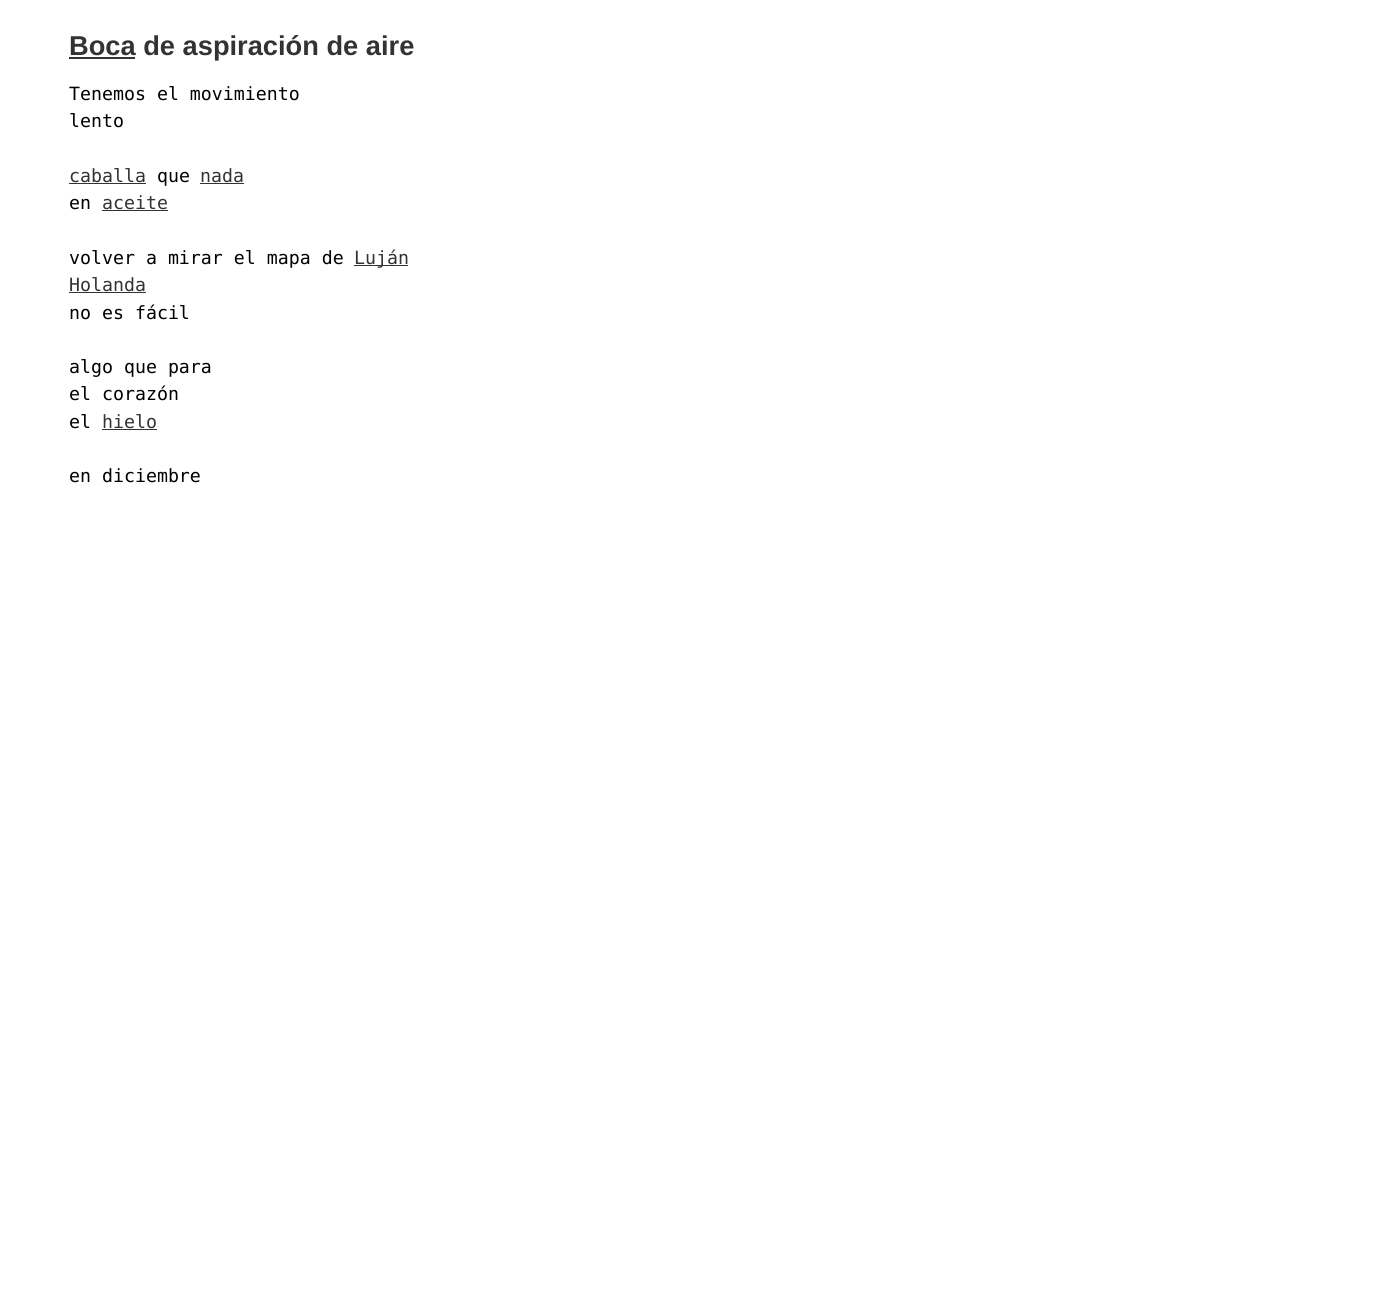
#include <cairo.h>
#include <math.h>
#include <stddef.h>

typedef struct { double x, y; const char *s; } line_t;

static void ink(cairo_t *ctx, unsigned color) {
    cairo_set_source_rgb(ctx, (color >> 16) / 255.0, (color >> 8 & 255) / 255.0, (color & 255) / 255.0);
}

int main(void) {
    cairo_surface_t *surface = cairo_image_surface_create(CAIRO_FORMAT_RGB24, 1380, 1299);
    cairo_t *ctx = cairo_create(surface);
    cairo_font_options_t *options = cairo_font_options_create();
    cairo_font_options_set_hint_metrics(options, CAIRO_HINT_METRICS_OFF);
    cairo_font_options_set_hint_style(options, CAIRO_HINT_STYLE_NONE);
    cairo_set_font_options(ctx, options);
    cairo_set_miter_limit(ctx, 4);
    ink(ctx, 0xFFFFFF);
    cairo_paint(ctx);
    ink(ctx, 0x333333);
    cairo_rectangle(ctx, 69, 57, 66, 2);
    cairo_fill(ctx);
    cairo_select_font_face(ctx, "Liberation Sans", CAIRO_FONT_SLANT_NORMAL, CAIRO_FONT_WEIGHT_BOLD);
    cairo_set_font_size(ctx, 27.25);
    cairo_move_to(ctx, 69, 55);
    cairo_show_text(ctx, "Boca de aspiración de aire");
    cairo_select_font_face(ctx, "DejaVu Sans Mono", CAIRO_FONT_SLANT_NORMAL, CAIRO_FONT_WEIGHT_NORMAL);
    cairo_set_font_size(ctx, 18.25);
    ink(ctx, 0x000000);
    cairo_move_to(ctx, 69, 100);
    cairo_show_text(ctx, "Tenemos el movimiento");
    cairo_move_to(ctx, 69, 127);
    cairo_show_text(ctx, "lento");
    ink(ctx, 0x333333);
    cairo_move_to(ctx, 69, 182);
    cairo_show_text(ctx, "caballa");
    cairo_rectangle(ctx, 69, 183, 77, 1);
    cairo_fill(ctx);
    ink(ctx, 0x000000);
    cairo_move_to(ctx, 157, 182);
    cairo_show_text(ctx, "que");
    ink(ctx, 0x333333);
    cairo_move_to(ctx, 200, 182);
    cairo_show_text(ctx, "nada");
    cairo_rectangle(ctx, 200, 183, 44, 1);
    cairo_fill(ctx);
    ink(ctx, 0x000000);
    cairo_move_to(ctx, 69, 209);
    cairo_show_text(ctx, "en");
    ink(ctx, 0x333333);
    cairo_move_to(ctx, 102, 209);
    cairo_show_text(ctx, "aceite");
    cairo_rectangle(ctx, 102, 210, 66, 1);
    cairo_fill(ctx);
    ink(ctx, 0x000000);
    cairo_move_to(ctx, 69, 264);
    cairo_show_text(ctx, "volver a mirar el mapa de");
    ink(ctx, 0x333333);
    cairo_rectangle(ctx, 354, 265, 54, 1);
    cairo_fill(ctx);
    cairo_move_to(ctx, 354, 264);
    cairo_show_text(ctx, "Luján");
    cairo_move_to(ctx, 69, 291);
    cairo_show_text(ctx, "Holanda");
    cairo_rectangle(ctx, 69, 292, 77, 1);
    cairo_fill(ctx);
    ink(ctx, 0x000000);
    {
        static const line_t items[] = {
            {69, 319, "no es fácil"},
            {69, 373, "algo que para"},
            {69, 400, "el corazón"},
            {69, 428, "el"},
        };
        for (size_t i = 0; i < sizeof items / sizeof *items; i++) {
            cairo_move_to(ctx, items[i].x, items[i].y);
            cairo_show_text(ctx, items[i].s);
        }
    }
    ink(ctx, 0x333333);
    cairo_move_to(ctx, 102, 428);
    cairo_show_text(ctx, "hielo");
    cairo_rectangle(ctx, 102, 429, 55, 1);
    cairo_fill(ctx);
    ink(ctx, 0x000000);
    cairo_move_to(ctx, 69, 482);
    cairo_show_text(ctx, "en diciembre");
    cairo_surface_write_to_png(surface, "image.png");
    cairo_font_options_destroy(options);
    cairo_destroy(ctx);
    cairo_surface_destroy(surface);
    return 0;
}
